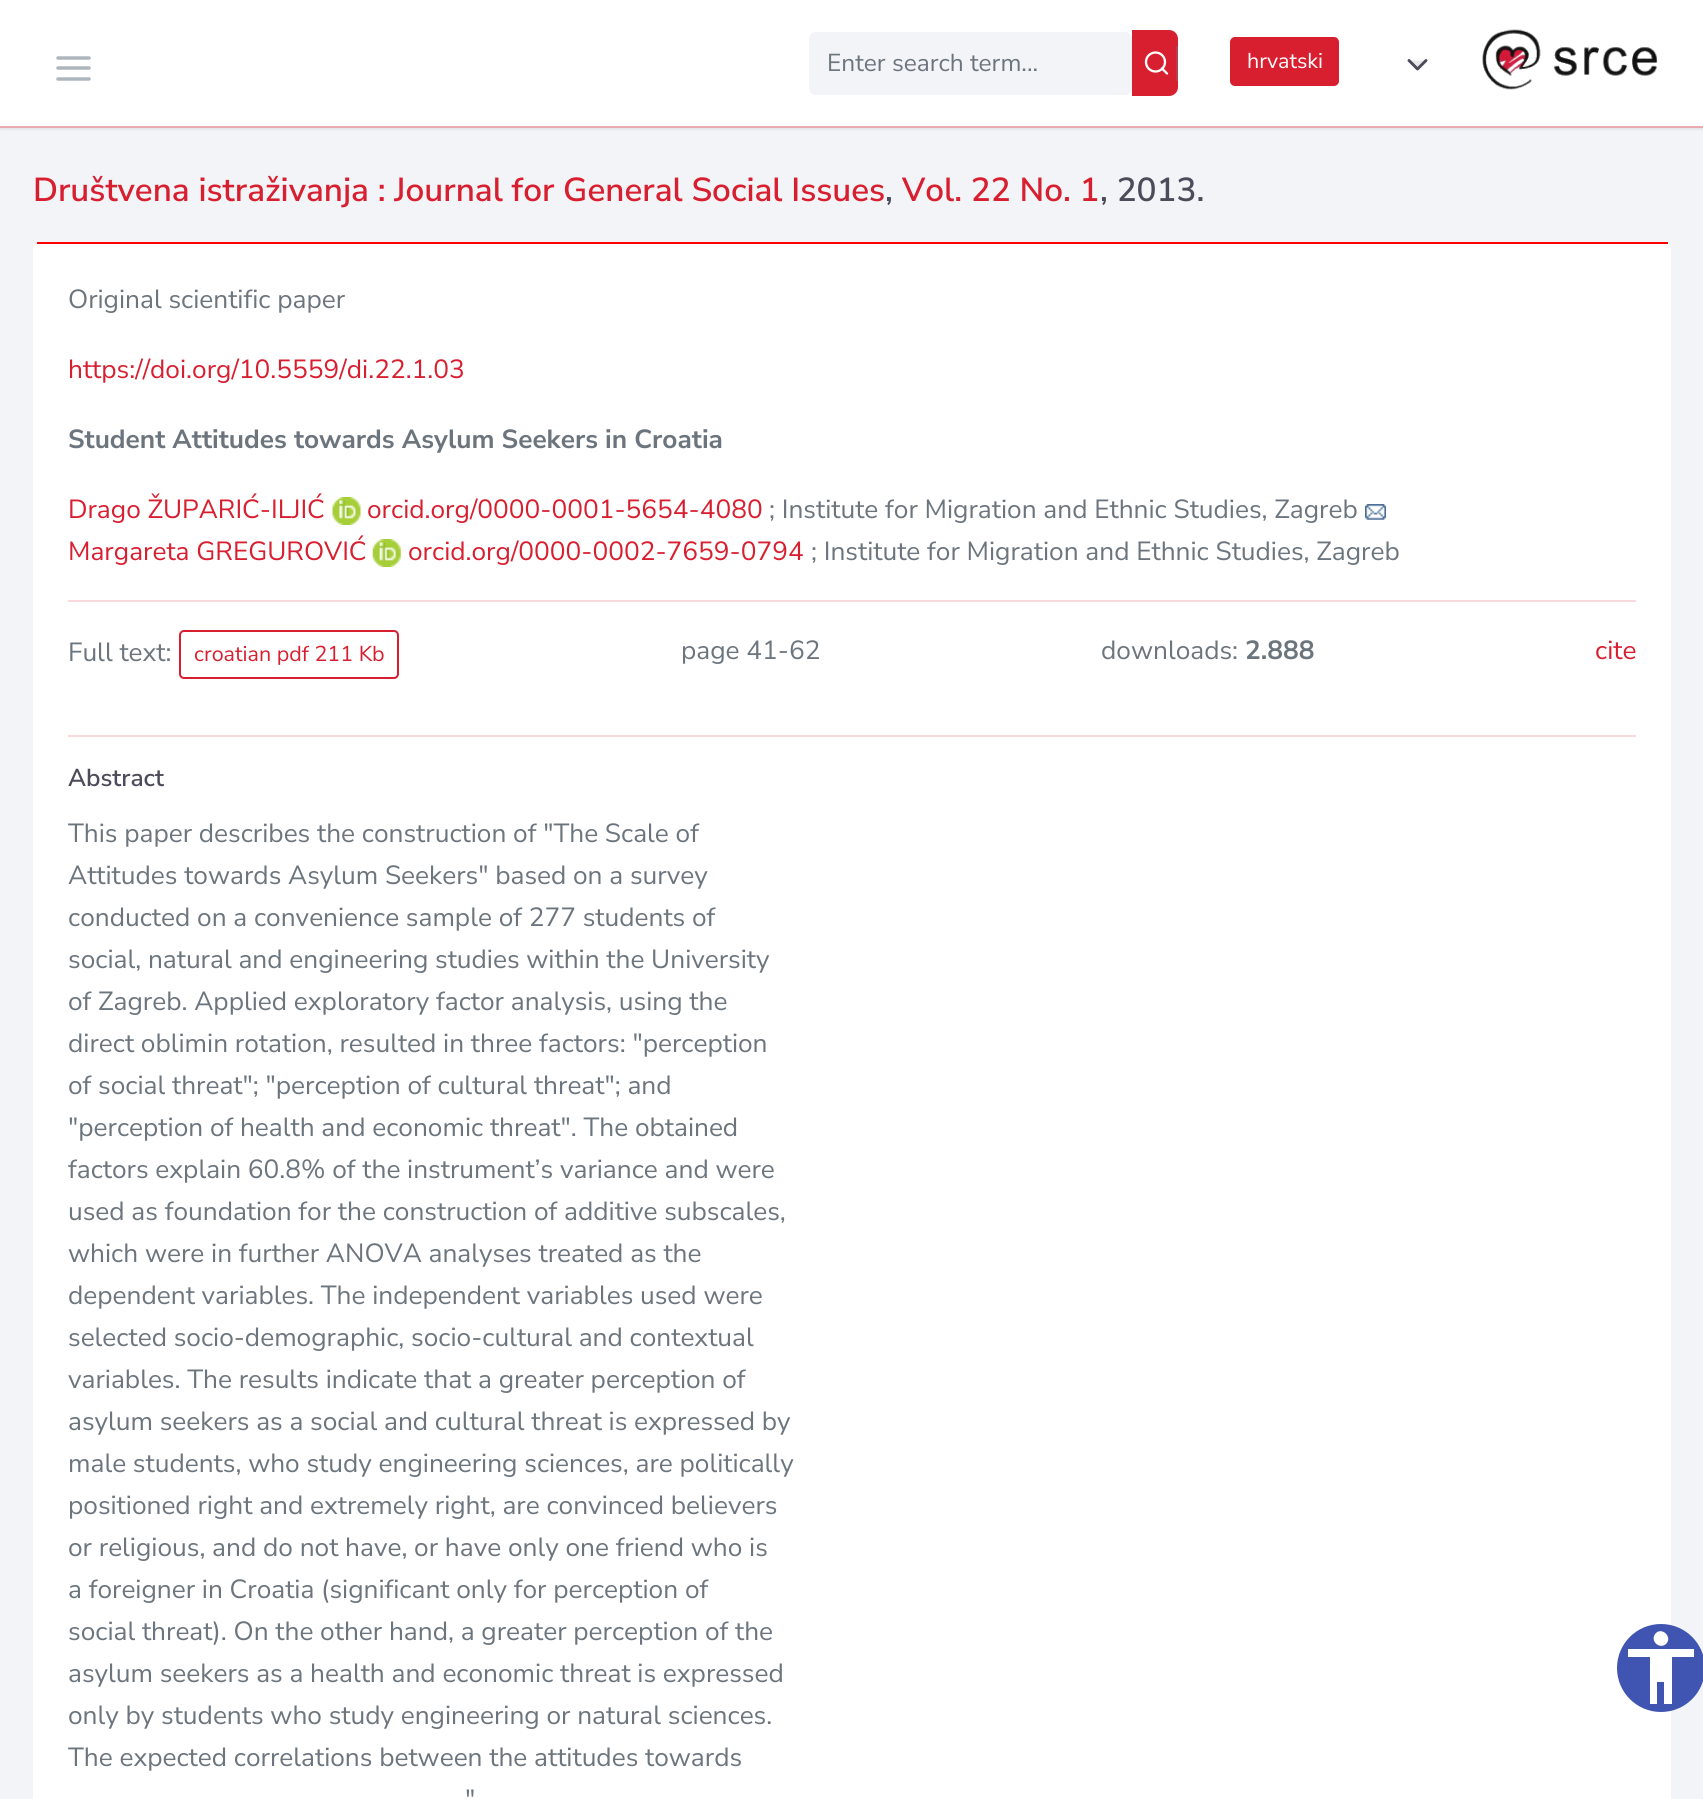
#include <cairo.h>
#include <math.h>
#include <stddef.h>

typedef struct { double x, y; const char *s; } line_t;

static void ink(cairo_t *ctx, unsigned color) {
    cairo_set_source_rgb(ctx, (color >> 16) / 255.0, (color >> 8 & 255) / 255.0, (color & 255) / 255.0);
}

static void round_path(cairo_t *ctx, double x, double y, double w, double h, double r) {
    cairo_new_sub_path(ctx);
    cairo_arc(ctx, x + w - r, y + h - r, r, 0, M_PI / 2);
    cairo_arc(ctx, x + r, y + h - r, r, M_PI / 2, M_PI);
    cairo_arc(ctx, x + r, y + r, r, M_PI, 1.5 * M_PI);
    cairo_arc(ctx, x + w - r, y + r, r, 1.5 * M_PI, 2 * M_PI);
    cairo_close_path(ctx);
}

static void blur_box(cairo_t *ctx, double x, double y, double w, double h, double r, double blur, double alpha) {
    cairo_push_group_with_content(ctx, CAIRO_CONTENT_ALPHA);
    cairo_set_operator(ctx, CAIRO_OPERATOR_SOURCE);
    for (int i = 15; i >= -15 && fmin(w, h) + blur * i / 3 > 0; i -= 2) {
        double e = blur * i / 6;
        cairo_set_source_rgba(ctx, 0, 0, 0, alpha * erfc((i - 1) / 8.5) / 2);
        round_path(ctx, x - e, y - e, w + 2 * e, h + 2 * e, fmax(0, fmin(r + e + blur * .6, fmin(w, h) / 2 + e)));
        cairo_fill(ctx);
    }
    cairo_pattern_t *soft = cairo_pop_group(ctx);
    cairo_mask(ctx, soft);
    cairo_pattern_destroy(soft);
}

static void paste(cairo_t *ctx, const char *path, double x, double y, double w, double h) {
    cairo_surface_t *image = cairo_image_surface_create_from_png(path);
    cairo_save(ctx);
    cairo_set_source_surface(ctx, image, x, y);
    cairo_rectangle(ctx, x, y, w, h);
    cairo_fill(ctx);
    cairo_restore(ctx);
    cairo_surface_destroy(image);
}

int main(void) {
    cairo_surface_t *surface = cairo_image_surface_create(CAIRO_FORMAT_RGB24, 1703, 1799);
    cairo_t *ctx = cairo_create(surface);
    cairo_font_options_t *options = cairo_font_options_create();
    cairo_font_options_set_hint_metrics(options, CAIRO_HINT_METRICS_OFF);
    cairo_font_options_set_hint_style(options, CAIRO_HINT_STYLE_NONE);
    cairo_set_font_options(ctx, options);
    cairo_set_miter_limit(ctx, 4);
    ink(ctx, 0xF3F4F7);
    cairo_paint(ctx);
    ink(ctx, 0x4B4B5A);
    blur_box(ctx, 0, 128, 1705, 2, 0, 0.5, 0.07);
    ink(ctx, 0xF1B1B6);
    cairo_rectangle(ctx, 0, 126, 1703, 2);
    cairo_fill(ctx);
    ink(ctx, 0x4B4B5A);
    blur_box(ctx, 0, 2, 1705, 126, 0, 0.5, 0.07);
    ink(ctx, 0xFFFFFF);
    cairo_rectangle(ctx, 0, 0, 1703, 126);
    cairo_fill(ctx);
    cairo_new_path(ctx);
    cairo_move_to(ctx, 58, 68);
    cairo_line_to(ctx, 89, 68);
    cairo_move_to(ctx, 58, 58);
    cairo_line_to(ctx, 89, 58);
    cairo_move_to(ctx, 58, 79);
    cairo_line_to(ctx, 89, 79);
    ink(ctx, 0xADB5BD);
    cairo_set_line_width(ctx, 3.5);
    cairo_set_line_cap(ctx, CAIRO_LINE_CAP_ROUND);
    cairo_set_line_join(ctx, CAIRO_LINE_JOIN_ROUND);
    cairo_stroke(ctx);
    ink(ctx, 0xF3F4F7);
    round_path(ctx, 809, 32, 323, 63, 7);
    cairo_fill(ctx);
    cairo_select_font_face(ctx, "Nunito Sans", CAIRO_FONT_SLANT_NORMAL, CAIRO_FONT_WEIGHT_NORMAL);
    cairo_set_font_size(ctx, 24.5);
    ink(ctx, 0x6C757D);
    cairo_move_to(ctx, 827, 71);
    cairo_show_text(ctx, "Enter search term...");
    ink(ctx, 0xD81F30);
    cairo_new_path(ctx);
    cairo_move_to(ctx, 1133, 31);
    cairo_line_to(ctx, 1169, 31);
    cairo_curve_to(ctx, 1173.5, 31, 1177, 34.5, 1177, 39);
    cairo_line_to(ctx, 1177, 87);
    cairo_curve_to(ctx, 1177, 91.5, 1173.5, 95, 1169, 95);
    cairo_line_to(ctx, 1133, 95);
    cairo_close_path(ctx);
    cairo_fill_preserve(ctx);
    cairo_set_line_width(ctx, 2);
    cairo_set_line_cap(ctx, CAIRO_LINE_CAP_BUTT);
    cairo_set_line_join(ctx, CAIRO_LINE_JOIN_MITER);
    cairo_stroke(ctx);
    ink(ctx, 0xAE4350);
    cairo_rectangle(ctx, 1176, 46, 2, 35);
    cairo_fill(ctx);
    cairo_arc(ctx, 1155.5, 62, 9.5, 0, 2 * M_PI);
    ink(ctx, 0xFFFFFF);
    cairo_set_line_width(ctx, 2.3);
    cairo_stroke(ctx);
    cairo_new_path(ctx);
    cairo_move_to(ctx, 1167, 73.5);
    cairo_line_to(ctx, 1162, 68.5);
    cairo_set_line_cap(ctx, CAIRO_LINE_CAP_ROUND);
    cairo_set_line_join(ctx, CAIRO_LINE_JOIN_ROUND);
    cairo_stroke(ctx);
    ink(ctx, 0xD81F30);
    round_path(ctx, 1231, 38, 107, 47, 4);
    cairo_fill_preserve(ctx);
    cairo_set_line_width(ctx, 2);
    cairo_set_line_cap(ctx, CAIRO_LINE_CAP_BUTT);
    cairo_set_line_join(ctx, CAIRO_LINE_JOIN_MITER);
    cairo_stroke(ctx);
    cairo_set_font_size(ctx, 21.5);
    ink(ctx, 0xFFFFFF);
    cairo_move_to(ctx, 1247, 68);
    cairo_show_text(ctx, "hrvatski");
    ink(ctx, 0xE9E9EB);
    cairo_new_path(ctx);
    cairo_move_to(ctx, 1409, 60.5);
    cairo_line_to(ctx, 1417.5, 69);
    cairo_line_to(ctx, 1426, 60.5);
    cairo_fill_preserve(ctx);
    ink(ctx, 0x4B4B5A);
    cairo_set_line_width(ctx, 2.9);
    cairo_set_line_cap(ctx, CAIRO_LINE_CAP_ROUND);
    cairo_set_line_join(ctx, CAIRO_LINE_JOIN_ROUND);
    cairo_stroke(ctx);
    paste(ctx, "media/1.png", 1482, 29, 176, 61);
    cairo_select_font_face(ctx, "Nunito Sans SemiBold", CAIRO_FONT_SLANT_NORMAL, CAIRO_FONT_WEIGHT_NORMAL);
    cairo_set_font_size(ctx, 33.25);
    ink(ctx, 0xD81F30);
    cairo_move_to(ctx, 33, 201);
    cairo_show_text(ctx, "Društvena istraživanja : Journal for General Social Issues");
    ink(ctx, 0x4B4B5A);
    cairo_move_to(ctx, 885, 201);
    cairo_show_text(ctx, ",");
    ink(ctx, 0xD81F30);
    cairo_move_to(ctx, 902, 201);
    cairo_show_text(ctx, "Vol. 22 No. 1");
    ink(ctx, 0x4B4B5A);
    cairo_move_to(ctx, 1100, 201);
    cairo_show_text(ctx, ", 2013.");
    ink(ctx, 0xFFFFFF);
    round_path(ctx, 33, 242, 1638, 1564, 7);
    cairo_fill(ctx);
    ink(ctx, 0xFF0000);
    cairo_rectangle(ctx, 37, 242, 1631, 2);
    cairo_fill(ctx);
    cairo_select_font_face(ctx, "Nunito Sans", CAIRO_FONT_SLANT_NORMAL, CAIRO_FONT_WEIGHT_NORMAL);
    cairo_set_font_size(ctx, 26.25);
    ink(ctx, 0x6C757D);
    cairo_move_to(ctx, 68, 308);
    cairo_show_text(ctx, "Original scientific paper");
    ink(ctx, 0xD81F30);
    cairo_move_to(ctx, 68, 378);
    cairo_show_text(ctx, "https://doi.org/10.5559/di.22.1.03");
    cairo_select_font_face(ctx, "Nunito Sans", CAIRO_FONT_SLANT_NORMAL, CAIRO_FONT_WEIGHT_BOLD);
    ink(ctx, 0x6C757D);
    cairo_move_to(ctx, 68, 448);
    cairo_show_text(ctx, "Student Attitudes towards Asylum Seekers in Croatia");
    cairo_select_font_face(ctx, "Nunito Sans", CAIRO_FONT_SLANT_NORMAL, CAIRO_FONT_WEIGHT_NORMAL);
    ink(ctx, 0xD81F30);
    cairo_move_to(ctx, 68, 518);
    cairo_show_text(ctx, "Drago ŽUPARIĆ-ILJIĆ");
    paste(ctx, "media/2.png", 332, 497, 29, 28);
    cairo_move_to(ctx, 367, 518);
    cairo_show_text(ctx, "orcid.org/0000-0001-5654-4080");
    ink(ctx, 0x6C757D);
    cairo_move_to(ctx, 769, 518);
    cairo_show_text(ctx, "; Institute for Migration and Ethnic Studies, Zagreb");
    paste(ctx, "media/3.png", 1365, 504, 21, 16);
    ink(ctx, 0xD81F30);
    cairo_move_to(ctx, 68, 560);
    cairo_show_text(ctx, "Margareta GREGUROVIĆ");
    paste(ctx, "media/4.png", 372, 539, 29, 28);
    cairo_move_to(ctx, 408, 560);
    cairo_show_text(ctx, "orcid.org/0000-0002-7659-0794");
    ink(ctx, 0x6C757D);
    cairo_move_to(ctx, 811, 560);
    cairo_show_text(ctx, "; Institute for Migration and Ethnic Studies, Zagreb");
    ink(ctx, 0xF8D9DC);
    cairo_rectangle(ctx, 68, 600, 1568, 2);
    cairo_fill(ctx);
    ink(ctx, 0x6C757D);
    cairo_move_to(ctx, 68, 661);
    cairo_show_text(ctx, "Full text:");
    round_path(ctx, 180, 631, 218, 47, 4);
    ink(ctx, 0xD81F30);
    cairo_set_line_width(ctx, 2);
    cairo_set_line_cap(ctx, CAIRO_LINE_CAP_BUTT);
    cairo_set_line_join(ctx, CAIRO_LINE_JOIN_MITER);
    cairo_stroke(ctx);
    cairo_set_font_size(ctx, 21.5);
    cairo_move_to(ctx, 194, 661);
    cairo_show_text(ctx, "croatian pdf 211 Kb");
    cairo_set_font_size(ctx, 26.25);
    ink(ctx, 0x6C757D);
    cairo_move_to(ctx, 681, 659);
    cairo_show_text(ctx, "page 41-62");
    cairo_move_to(ctx, 1101, 659);
    cairo_show_text(ctx, "downloads:");
    cairo_select_font_face(ctx, "Nunito Sans", CAIRO_FONT_SLANT_NORMAL, CAIRO_FONT_WEIGHT_BOLD);
    cairo_move_to(ctx, 1245, 659);
    cairo_show_text(ctx, "2.888");
    cairo_select_font_face(ctx, "Nunito Sans", CAIRO_FONT_SLANT_NORMAL, CAIRO_FONT_WEIGHT_NORMAL);
    ink(ctx, 0xD81F30);
    cairo_move_to(ctx, 1595, 659);
    cairo_show_text(ctx, "cite");
    ink(ctx, 0xF8D9DC);
    cairo_rectangle(ctx, 68, 735, 1568, 2);
    cairo_fill(ctx);
    cairo_select_font_face(ctx, "Nunito Sans SemiBold", CAIRO_FONT_SLANT_NORMAL, CAIRO_FONT_WEIGHT_NORMAL);
    cairo_set_font_size(ctx, 24.5);
    ink(ctx, 0x4B4B5A);
    cairo_move_to(ctx, 68, 786);
    cairo_show_text(ctx, "Abstract");
    cairo_select_font_face(ctx, "Nunito Sans", CAIRO_FONT_SLANT_NORMAL, CAIRO_FONT_WEIGHT_NORMAL);
    cairo_set_font_size(ctx, 26.25);
    ink(ctx, 0x6C757D);
    {
        static const line_t items[] = {
            {68, 842, "This paper describes the construction of \"The Scale of"},
            {68, 884, "Attitudes towards Asylum Seekers\" based on a survey"},
            {68, 926, "conducted on a convenience sample of 277 students of"},
            {68, 968, "social, natural and engineering studies within the University"},
            {68, 1010, "of Zagreb. Applied exploratory factor analysis, using the"},
            {68, 1052, "direct oblimin rotation, resulted in three factors: \"perception"},
            {68, 1094, "of social threat\"; \"perception of cultural threat\"; and"},
            {68, 1136, "\"perception of health and economic threat\". The obtained"},
            {68, 1178, "factors explain 60.8% of the instrument’s variance and were"},
            {68, 1220, "used as foundation for the construction of additive subscales,"},
            {68, 1262, "which were in further ANOVA analyses treated as the"},
            {68, 1304, "dependent variables. The independent variables used were"},
            {68, 1346, "selected socio-demographic, socio-cultural and contextual"},
            {68, 1388, "variables. The results indicate that a greater perception of"},
            {68, 1430, "asylum seekers as a social and cultural threat is expressed by"},
            {68, 1472, "male students, who study engineering sciences, are politically"},
            {68, 1514, "positioned right and extremely right, are convinced believers"},
            {68, 1556, "or religious, and do not have, or have only one friend who is"},
            {68, 1598, "a foreigner in Croatia (significant only for perception of"},
            {68, 1640, "social threat). On the other hand, a greater perception of the"},
            {68, 1682, "asylum seekers as a health and economic threat is expressed"},
            {68, 1724, "only by students who study engineering or natural sciences."},
            {68, 1766, "The expected correlations between the attitudes towards"},
            {465, 1808, "\""},
        };
        for (size_t i = 0; i < sizeof items / sizeof *items; i++) {
            cairo_move_to(ctx, items[i].x, items[i].y);
            cairo_show_text(ctx, items[i].s);
        }
    }
    ink(ctx, 0x4054B2);
    cairo_new_path(ctx);
    cairo_arc(ctx, 1661, 1668, 44, 0, 2 * M_PI);
    cairo_fill(ctx);
    ink(ctx, 0xFFFFFF);
    cairo_new_path(ctx);
    cairo_move_to(ctx, 1694, 1657);
    cairo_line_to(ctx, 1672, 1657);
    cairo_line_to(ctx, 1672, 1704);
    cairo_line_to(ctx, 1664, 1704);
    cairo_line_to(ctx, 1664, 1682);
    cairo_line_to(ctx, 1657, 1682);
    cairo_line_to(ctx, 1657, 1704);
    cairo_line_to(ctx, 1650, 1704);
    cairo_line_to(ctx, 1650, 1657);
    cairo_line_to(ctx, 1628, 1657);
    cairo_line_to(ctx, 1628, 1649);
    cairo_line_to(ctx, 1694, 1649);
    cairo_close_path(ctx);
    cairo_move_to(ctx, 1656, 1633);
    cairo_curve_to(ctx, 1662, 1627, 1673, 1637, 1666, 1644);
    cairo_curve_to(ctx, 1659, 1650, 1649, 1640, 1656, 1633);
    cairo_close_path(ctx);
    cairo_fill(ctx);
    cairo_surface_write_to_png(surface, "image.png");
    cairo_font_options_destroy(options);
    cairo_destroy(ctx);
    cairo_surface_destroy(surface);
    return 0;
}
